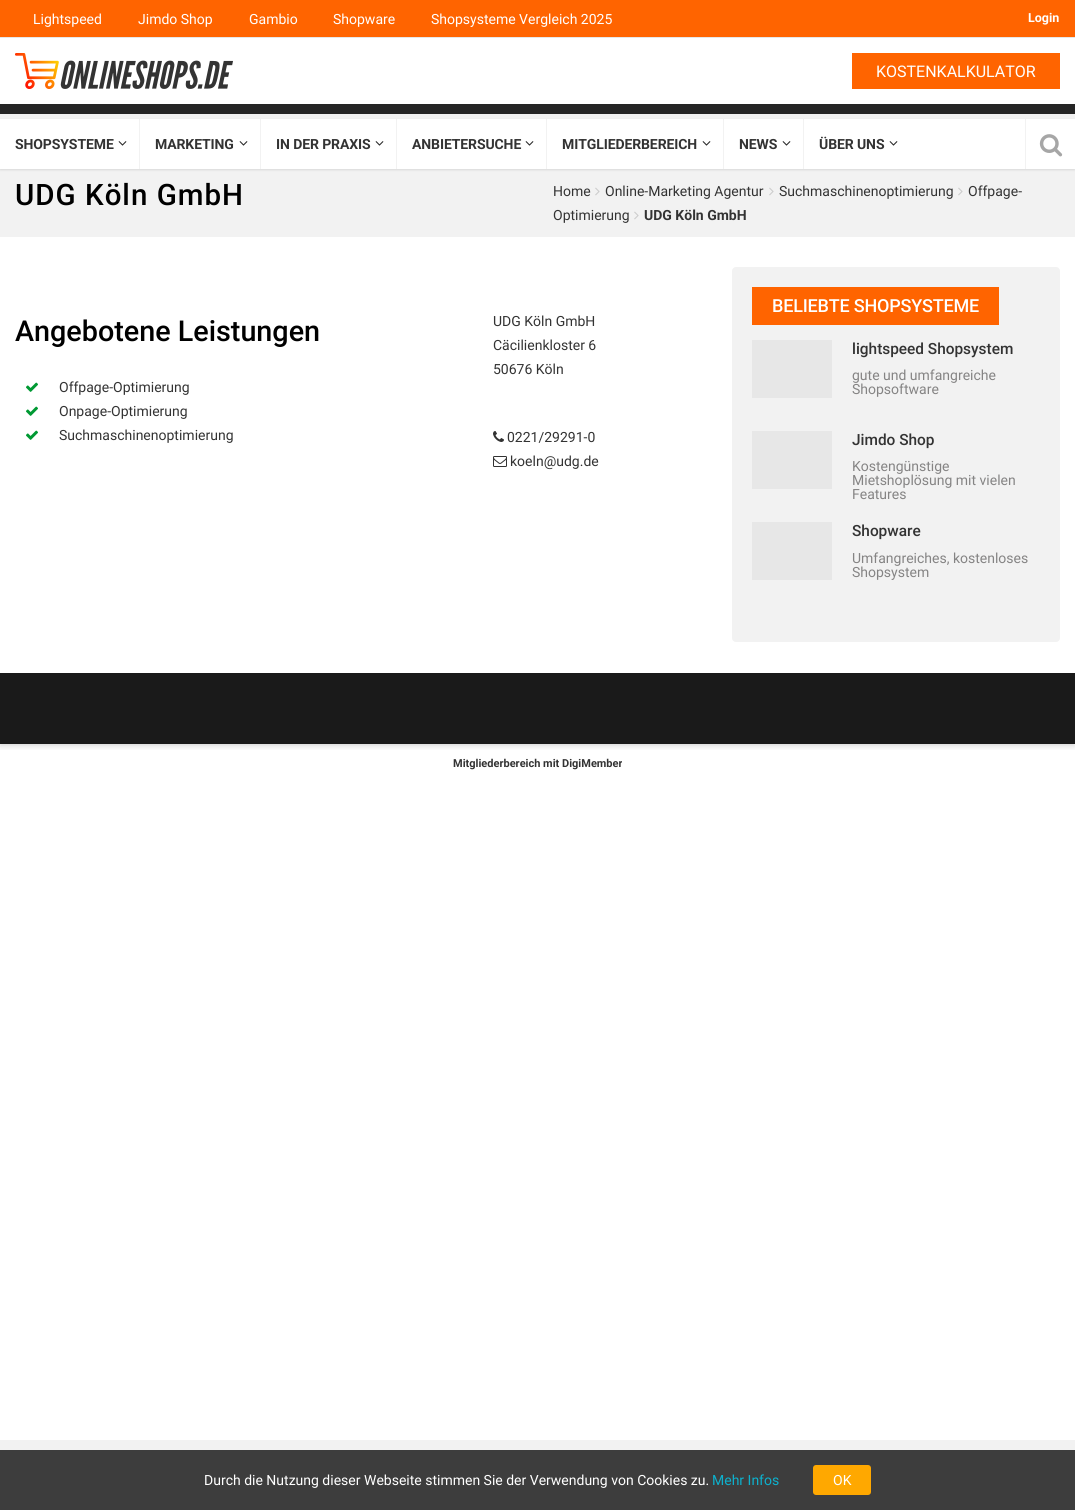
#include <cairo.h>
#include <math.h>
#include <stddef.h>

typedef struct { double x, y; const char *s; } line_t;
typedef struct { double x, y, w, h; unsigned color; } box_t;

static void ink(cairo_t *ctx, unsigned color) {
    cairo_set_source_rgb(ctx, (color >> 16) / 255.0, (color >> 8 & 255) / 255.0, (color & 255) / 255.0);
}

static void write_spaced(cairo_t *ctx, double x, double y, const char *s, double letter, double word) {
    cairo_move_to(ctx, x, y);
    while (*s) {
        char ch[5] = {0};
        int n = 0;
        do ch[n++] = *s++; while ((*s & 0xC0) == 0x80);
        cairo_show_text(ctx, ch);
        cairo_rel_move_to(ctx, letter + word * (*ch == ' '), 0);
    }
}

static void round_path(cairo_t *ctx, double x, double y, double w, double h, double r) {
    cairo_new_sub_path(ctx);
    cairo_arc(ctx, x + w - r, y + h - r, r, 0, M_PI / 2);
    cairo_arc(ctx, x + r, y + h - r, r, M_PI / 2, M_PI);
    cairo_arc(ctx, x + r, y + r, r, M_PI, 1.5 * M_PI);
    cairo_arc(ctx, x + w - r, y + r, r, 1.5 * M_PI, 2 * M_PI);
    cairo_close_path(ctx);
}

static void blur_box(cairo_t *ctx, double x, double y, double w, double h, double r, double blur, double alpha) {
    cairo_push_group_with_content(ctx, CAIRO_CONTENT_ALPHA);
    cairo_set_operator(ctx, CAIRO_OPERATOR_SOURCE);
    for (int i = 15; i >= -15 && fmin(w, h) + blur * i / 3 > 0; i -= 2) {
        double e = blur * i / 6;
        cairo_set_source_rgba(ctx, 0, 0, 0, alpha * erfc((i - 1) / 8.5) / 2);
        round_path(ctx, x - e, y - e, w + 2 * e, h + 2 * e, fmax(0, fmin(r + e + blur * .6, fmin(w, h) / 2 + e)));
        cairo_fill(ctx);
    }
    cairo_pattern_t *soft = cairo_pop_group(ctx);
    cairo_mask(ctx, soft);
    cairo_pattern_destroy(soft);
}

static void paste(cairo_t *ctx, const char *path, double x, double y, double w, double h) {
    cairo_surface_t *image = cairo_image_surface_create_from_png(path);
    cairo_save(ctx);
    cairo_set_source_surface(ctx, image, x, y);
    cairo_rectangle(ctx, x, y, w, h);
    cairo_fill(ctx);
    cairo_restore(ctx);
    cairo_surface_destroy(image);
}

int main(void) {
    cairo_surface_t *surface = cairo_image_surface_create(CAIRO_FORMAT_RGB24, 1075, 1510);
    cairo_t *ctx = cairo_create(surface);
    cairo_font_options_t *options = cairo_font_options_create();
    cairo_font_options_set_hint_metrics(options, CAIRO_HINT_METRICS_OFF);
    cairo_font_options_set_hint_style(options, CAIRO_HINT_STYLE_NONE);
    cairo_set_font_options(ctx, options);
    cairo_set_miter_limit(ctx, 4);
    ink(ctx, 0xFFFFFF);
    cairo_paint(ctx);
    cairo_save(ctx);
    cairo_rectangle(ctx, 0, 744, 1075, 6);
    cairo_clip(ctx);
    ink(ctx, 0x000000);
    blur_box(ctx, 0, 0, 1075, 744, 0, 4, 0.25);
    cairo_restore(ctx);
    ink(ctx, 0xFF6400);
    cairo_rectangle(ctx, 0, 0, 1075, 37);
    cairo_fill(ctx);
    ink(ctx, 0xE6E6E6);
    cairo_rectangle(ctx, 0, 37, 1075, 1);
    cairo_fill(ctx);
    cairo_select_font_face(ctx, "Roboto", CAIRO_FONT_SLANT_NORMAL, CAIRO_FONT_WEIGHT_NORMAL);
    cairo_set_font_size(ctx, 14);
    ink(ctx, 0xFFFFFF);
    {
        static const line_t items[] = {
            {33, 24, "Lightspeed"},
            {138, 24, "Jimdo Shop"},
            {249, 24, "Gambio"},
            {333, 24, "Shopware"},
            {431, 24, "Shopsysteme Vergleich 2025"},
        };
        for (size_t i = 0; i < sizeof items / sizeof *items; i++) {
            cairo_move_to(ctx, items[i].x, items[i].y);
            cairo_show_text(ctx, items[i].s);
        }
    }
    cairo_select_font_face(ctx, "Roboto", CAIRO_FONT_SLANT_NORMAL, CAIRO_FONT_WEIGHT_BOLD);
    cairo_set_font_size(ctx, 12.5);
    cairo_move_to(ctx, 1028, 22);
    cairo_show_text(ctx, "Login");
    paste(ctx, "media/1.png", 15, 53, 218, 36);
    ink(ctx, 0xFF6400);
    cairo_rectangle(ctx, 852, 53, 208, 36);
    cairo_fill(ctx);
    cairo_select_font_face(ctx, "Roboto", CAIRO_FONT_SLANT_NORMAL, CAIRO_FONT_WEIGHT_NORMAL);
    cairo_set_font_size(ctx, 16);
    ink(ctx, 0xFFFFFF);
    cairo_move_to(ctx, 876, 77);
    cairo_show_text(ctx, "KOSTENKALKULATOR");
    {
        static const box_t items[] = {
            {0, 104, 1075, 10, 0x252525},
            {0, 114, 1075, 5, 0xF2F2F2},
            {0, 169, 1075, 68, 0xF2F2F2},
        };
        for (size_t i = 0; i < sizeof items / sizeof *items; i++) {
            ink(ctx, items[i].color);
            cairo_rectangle(ctx, items[i].x, items[i].y, items[i].w, items[i].h);
            cairo_fill(ctx);
        }
    }
    ink(ctx, 0x6C6C6C);
    blur_box(ctx, 0, 120, 1075, 50, 0, 1, 0.2);
    ink(ctx, 0xFFFFFF);
    cairo_rectangle(ctx, 0, 119, 1075, 50);
    cairo_fill(ctx);
    cairo_select_font_face(ctx, "Roboto", CAIRO_FONT_SLANT_NORMAL, CAIRO_FONT_WEIGHT_BOLD);
    cairo_set_font_size(ctx, 14);
    ink(ctx, 0x333333);
    write_spaced(ctx, 15, 149, "SHOPSYSTEME", -0.1, 0);
    paste(ctx, "media/2.png", 118, 141, 9, 5);
    ink(ctx, 0xF2F2F2);
    cairo_rectangle(ctx, 139, 119, 1, 50);
    cairo_fill(ctx);
    ink(ctx, 0x333333);
    write_spaced(ctx, 155, 149, "MARKETING", -0.1, 0);
    paste(ctx, "media/2.png", 239, 141, 9, 5);
    ink(ctx, 0xF2F2F2);
    cairo_rectangle(ctx, 260, 119, 1, 50);
    cairo_fill(ctx);
    ink(ctx, 0x333333);
    write_spaced(ctx, 276, 149, "IN DER PRAXIS", -0.1, 0);
    paste(ctx, "media/2.png", 375, 141, 9, 5);
    ink(ctx, 0xF2F2F2);
    cairo_rectangle(ctx, 396, 119, 1, 50);
    cairo_fill(ctx);
    ink(ctx, 0x333333);
    write_spaced(ctx, 412, 149, "ANBIETERSUCHE", -0.1, 0);
    paste(ctx, "media/2.png", 525, 141, 9, 5);
    ink(ctx, 0xF2F2F2);
    cairo_rectangle(ctx, 546, 119, 1, 50);
    cairo_fill(ctx);
    ink(ctx, 0x333333);
    write_spaced(ctx, 562, 149, "MITGLIEDERBEREICH", -0.1, 0);
    paste(ctx, "media/2.png", 702, 141, 9, 5);
    ink(ctx, 0xF2F2F2);
    cairo_rectangle(ctx, 723, 119, 1, 50);
    cairo_fill(ctx);
    ink(ctx, 0x333333);
    write_spaced(ctx, 739, 149, "NEWS", -0.1, 0);
    paste(ctx, "media/2.png", 782, 141, 9, 5);
    ink(ctx, 0xF2F2F2);
    cairo_rectangle(ctx, 803, 119, 1, 50);
    cairo_fill(ctx);
    ink(ctx, 0x333333);
    write_spaced(ctx, 819, 149, "ÜBER UNS", -0.1, 0);
    paste(ctx, "media/2.png", 889, 141, 9, 5);
    ink(ctx, 0xF2F2F2);
    cairo_rectangle(ctx, 1025, 119, 1, 50);
    cairo_fill(ctx);
    paste(ctx, "media/3.png", 1039, 134, 24, 23);
    cairo_select_font_face(ctx, "Roboto Medium", CAIRO_FONT_SLANT_NORMAL, CAIRO_FONT_WEIGHT_NORMAL);
    cairo_set_font_size(ctx, 29.5);
    ink(ctx, 0x000000);
    write_spaced(ctx, 15, 205, "UDG Köln GmbH", 1, 0);
    cairo_select_font_face(ctx, "Roboto", CAIRO_FONT_SLANT_NORMAL, CAIRO_FONT_WEIGHT_NORMAL);
    cairo_set_font_size(ctx, 14);
    ink(ctx, 0x333333);
    cairo_move_to(ctx, 553, 196);
    cairo_show_text(ctx, "Home");
    paste(ctx, "media/4.png", 595, 187, 5, 9);
    cairo_move_to(ctx, 605, 196);
    cairo_show_text(ctx, "Online-Marketing Agentur");
    paste(ctx, "media/4.png", 769, 187, 5, 9);
    cairo_move_to(ctx, 779, 196);
    cairo_show_text(ctx, "Suchmaschinenoptimierung");
    paste(ctx, "media/4.png", 958, 187, 5, 9);
    cairo_move_to(ctx, 968, 196);
    cairo_show_text(ctx, "Offpage-");
    cairo_move_to(ctx, 553, 220);
    cairo_show_text(ctx, "Optimierung");
    paste(ctx, "media/4.png", 634, 211, 5, 9);
    cairo_select_font_face(ctx, "Roboto", CAIRO_FONT_SLANT_NORMAL, CAIRO_FONT_WEIGHT_BOLD);
    cairo_move_to(ctx, 644, 220);
    cairo_show_text(ctx, "UDG Köln GmbH");
    cairo_select_font_face(ctx, "Roboto Medium", CAIRO_FONT_SLANT_NORMAL, CAIRO_FONT_WEIGHT_NORMAL);
    cairo_set_font_size(ctx, 28.75);
    ink(ctx, 0x000000);
    cairo_move_to(ctx, 15, 341);
    cairo_show_text(ctx, "Angebotene Leistungen");
    paste(ctx, "media/5.png", 26, 382, 12, 10);
    cairo_select_font_face(ctx, "Roboto", CAIRO_FONT_SLANT_NORMAL, CAIRO_FONT_WEIGHT_NORMAL);
    cairo_set_font_size(ctx, 14);
    ink(ctx, 0x333333);
    cairo_move_to(ctx, 59, 392);
    cairo_show_text(ctx, "Offpage-Optimierung");
    paste(ctx, "media/5.png", 26, 406, 12, 10);
    cairo_move_to(ctx, 59, 416);
    cairo_show_text(ctx, "Onpage-Optimierung");
    paste(ctx, "media/5.png", 26, 430, 12, 10);
    {
        static const line_t items[] = {
            {59, 440, "Suchmaschinenoptimierung"},
            {493, 326, "UDG Köln GmbH"},
            {493, 350, "Cäcilienkloster 6"},
            {493, 374, "50676 Köln"},
        };
        for (size_t i = 0; i < sizeof items / sizeof *items; i++) {
            cairo_move_to(ctx, items[i].x, items[i].y);
            cairo_show_text(ctx, items[i].s);
        }
    }
    paste(ctx, "media/6.png", 493, 431, 11, 11);
    cairo_move_to(ctx, 507, 442);
    cairo_show_text(ctx, "0221/29291-0");
    paste(ctx, "media/7.png", 493, 456, 14, 11);
    cairo_move_to(ctx, 510, 466);
    cairo_show_text(ctx, "koeln@udg.de");
    ink(ctx, 0xF2F2F2);
    round_path(ctx, 732, 267, 328, 375, 4);
    cairo_fill(ctx);
    ink(ctx, 0xFF6400);
    cairo_rectangle(ctx, 752, 287, 247, 38);
    cairo_fill(ctx);
    cairo_select_font_face(ctx, "Roboto Medium", CAIRO_FONT_SLANT_NORMAL, CAIRO_FONT_WEIGHT_NORMAL);
    cairo_set_font_size(ctx, 18);
    ink(ctx, 0xFFFFFF);
    write_spaced(ctx, 772, 312, "BELIEBTE SHOPSYSTEME", -0.2, 0);
    ink(ctx, 0xE7E7E7);
    cairo_rectangle(ctx, 752, 340, 80, 58);
    cairo_fill(ctx);
    cairo_set_font_size(ctx, 15.4);
    ink(ctx, 0x333333);
    cairo_move_to(ctx, 852, 354);
    cairo_show_text(ctx, "lightspeed Shopsystem");
    cairo_select_font_face(ctx, "Roboto", CAIRO_FONT_SLANT_NORMAL, CAIRO_FONT_WEIGHT_NORMAL);
    cairo_set_font_size(ctx, 14);
    ink(ctx, 0x858484);
    cairo_move_to(ctx, 852, 380);
    cairo_show_text(ctx, "gute und umfangreiche");
    cairo_move_to(ctx, 852, 394);
    cairo_show_text(ctx, "Shopsoftware");
    ink(ctx, 0xE7E7E7);
    cairo_rectangle(ctx, 752, 431, 80, 58);
    cairo_fill(ctx);
    cairo_select_font_face(ctx, "Roboto Medium", CAIRO_FONT_SLANT_NORMAL, CAIRO_FONT_WEIGHT_NORMAL);
    cairo_set_font_size(ctx, 15.4);
    ink(ctx, 0x333333);
    cairo_move_to(ctx, 852, 445);
    cairo_show_text(ctx, "Jimdo Shop");
    cairo_select_font_face(ctx, "Roboto", CAIRO_FONT_SLANT_NORMAL, CAIRO_FONT_WEIGHT_NORMAL);
    cairo_set_font_size(ctx, 14);
    ink(ctx, 0x858484);
    {
        static const line_t items[] = {
            {852, 471, "Kostengünstige"},
            {852, 485, "Mietshoplösung mit vielen"},
            {852, 499, "Features"},
        };
        for (size_t i = 0; i < sizeof items / sizeof *items; i++) {
            cairo_move_to(ctx, items[i].x, items[i].y);
            cairo_show_text(ctx, items[i].s);
        }
    }
    ink(ctx, 0xE7E7E7);
    cairo_rectangle(ctx, 752, 522, 80, 58);
    cairo_fill(ctx);
    cairo_select_font_face(ctx, "Roboto Medium", CAIRO_FONT_SLANT_NORMAL, CAIRO_FONT_WEIGHT_NORMAL);
    cairo_set_font_size(ctx, 15.4);
    ink(ctx, 0x333333);
    cairo_move_to(ctx, 852, 536);
    cairo_show_text(ctx, "Shopware");
    cairo_select_font_face(ctx, "Roboto", CAIRO_FONT_SLANT_NORMAL, CAIRO_FONT_WEIGHT_NORMAL);
    cairo_set_font_size(ctx, 14);
    ink(ctx, 0x858484);
    cairo_move_to(ctx, 852, 563);
    cairo_show_text(ctx, "Umfangreiches, kostenloses");
    cairo_move_to(ctx, 852, 577);
    cairo_show_text(ctx, "Shopsystem");
    ink(ctx, 0x1A1A1A);
    cairo_rectangle(ctx, 0, 673, 1075, 71);
    cairo_fill(ctx);
    cairo_select_font_face(ctx, "Roboto", CAIRO_FONT_SLANT_NORMAL, CAIRO_FONT_WEIGHT_BOLD);
    cairo_set_font_size(ctx, 11);
    ink(ctx, 0x333333);
    cairo_move_to(ctx, 453, 767);
    cairo_show_text(ctx, "Mitgliederbereich mit DigiMember");
    ink(ctx, 0xF2F2F2);
    cairo_rectangle(ctx, 0, 1440, 1075, 10);
    cairo_fill(ctx);
    ink(ctx, 0x3D3D3D);
    cairo_rectangle(ctx, 0, 1450, 1075, 60);
    cairo_fill(ctx);
    cairo_select_font_face(ctx, "Roboto", CAIRO_FONT_SLANT_NORMAL, CAIRO_FONT_WEIGHT_NORMAL);
    cairo_set_font_size(ctx, 14);
    ink(ctx, 0xFFFFFF);
    cairo_move_to(ctx, 204, 1485);
    cairo_show_text(ctx, "Durch die Nutzung dieser Webseite stimmen Sie der Verwendung von Cookies zu.");
    ink(ctx, 0x0DB1CD);
    cairo_move_to(ctx, 712, 1485);
    cairo_show_text(ctx, "Mehr Infos");
    ink(ctx, 0xFFA800);
    round_path(ctx, 813, 1465, 58, 30, 3);
    cairo_fill(ctx);
    ink(ctx, 0xFFFFFF);
    cairo_move_to(ctx, 833, 1485);
    cairo_show_text(ctx, "OK");
    cairo_surface_write_to_png(surface, "image.png");
    cairo_font_options_destroy(options);
    cairo_destroy(ctx);
    cairo_surface_destroy(surface);
    return 0;
}
